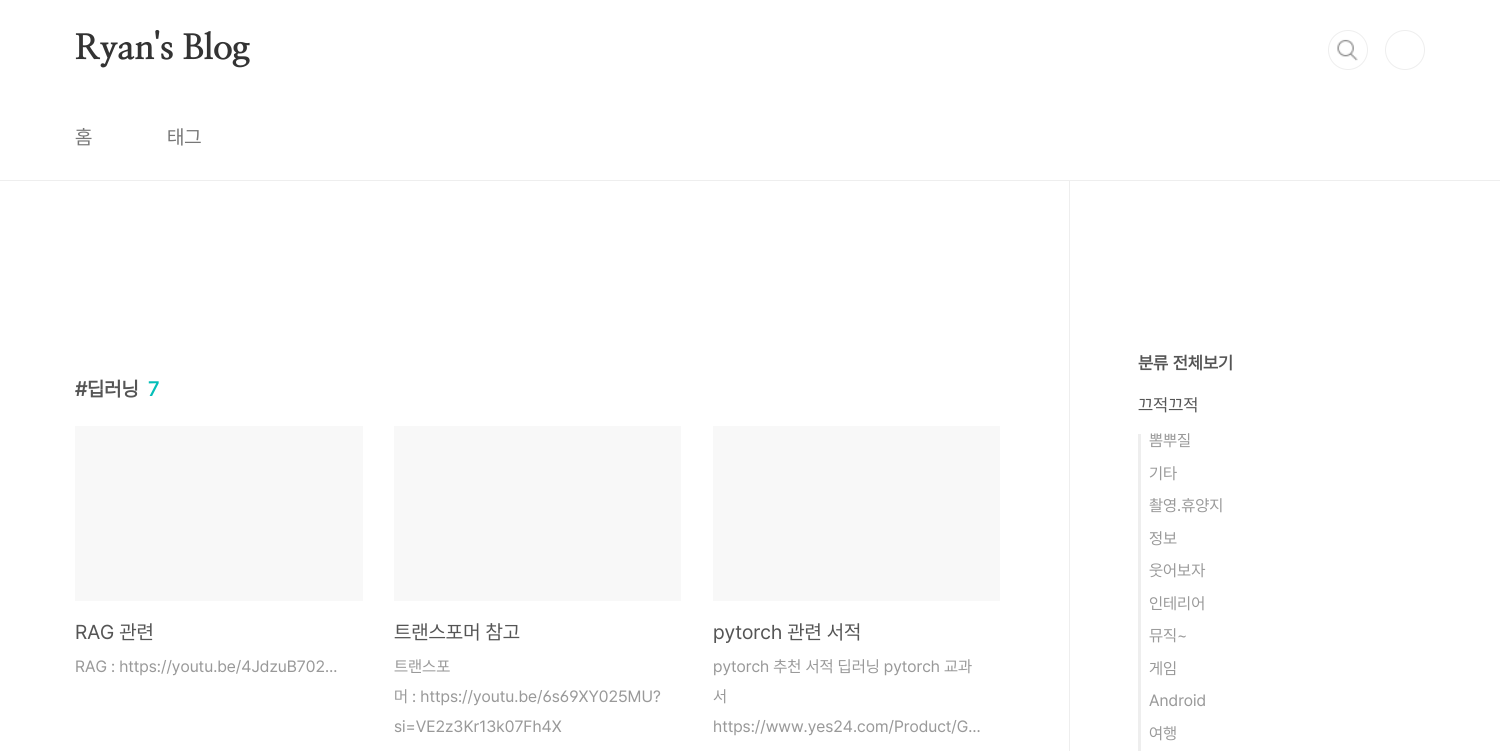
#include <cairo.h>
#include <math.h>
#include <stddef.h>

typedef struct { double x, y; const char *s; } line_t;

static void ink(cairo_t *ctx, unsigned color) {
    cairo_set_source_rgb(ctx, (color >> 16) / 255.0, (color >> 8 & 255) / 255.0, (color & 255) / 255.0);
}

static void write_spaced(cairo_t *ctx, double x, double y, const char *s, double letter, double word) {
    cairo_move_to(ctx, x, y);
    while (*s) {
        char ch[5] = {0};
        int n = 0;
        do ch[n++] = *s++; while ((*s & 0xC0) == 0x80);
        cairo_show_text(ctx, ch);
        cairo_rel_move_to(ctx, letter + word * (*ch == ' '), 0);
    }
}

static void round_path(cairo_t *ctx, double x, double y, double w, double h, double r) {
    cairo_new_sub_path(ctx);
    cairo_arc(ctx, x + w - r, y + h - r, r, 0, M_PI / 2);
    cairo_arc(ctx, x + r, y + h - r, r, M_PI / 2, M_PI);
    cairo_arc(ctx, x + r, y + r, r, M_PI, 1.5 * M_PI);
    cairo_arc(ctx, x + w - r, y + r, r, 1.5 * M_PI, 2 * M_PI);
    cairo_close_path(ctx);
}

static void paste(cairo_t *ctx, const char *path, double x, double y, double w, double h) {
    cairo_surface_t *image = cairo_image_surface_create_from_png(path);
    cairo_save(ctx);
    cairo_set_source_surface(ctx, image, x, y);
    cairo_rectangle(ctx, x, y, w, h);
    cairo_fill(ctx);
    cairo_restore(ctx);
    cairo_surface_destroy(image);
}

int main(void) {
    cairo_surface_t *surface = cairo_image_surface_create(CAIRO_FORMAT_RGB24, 1500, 751);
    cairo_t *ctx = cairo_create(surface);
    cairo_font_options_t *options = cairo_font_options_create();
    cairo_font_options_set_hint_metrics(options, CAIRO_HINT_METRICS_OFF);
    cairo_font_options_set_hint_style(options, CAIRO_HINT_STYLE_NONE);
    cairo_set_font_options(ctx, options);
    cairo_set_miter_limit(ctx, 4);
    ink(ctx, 0xFFFFFF);
    cairo_paint(ctx);
    ink(ctx, 0xEEEEEE);
    cairo_rectangle(ctx, 0, 180, 1500, 1);
    cairo_fill(ctx);
    cairo_select_font_face(ctx, "NanumMyeongjo ExtraBold", CAIRO_FONT_SLANT_NORMAL, CAIRO_FONT_WEIGHT_NORMAL);
    cairo_set_font_size(ctx, 35);
    ink(ctx, 0x333333);
    write_spaced(ctx, 75, 59, "Ryan's Blog", -0.25, 0);
    round_path(ctx, 1329.5, 31.5, 36, 37, 18);
    ink(ctx, 0xEEEEEE);
    cairo_set_line_width(ctx, 1);
    cairo_stroke(ctx);
    ink(ctx, 0xFFFFFF);
    cairo_arc(ctx, 1348, 50, 20, 0, 2 * M_PI);
    cairo_fill(ctx);
    paste(ctx, "media/1.png", 1337, 39, 21, 22);
    cairo_arc(ctx, 1348, 50, 19.5, 0, 2 * M_PI);
    ink(ctx, 0xEEEEEE);
    cairo_stroke(ctx);
    cairo_arc(ctx, 1405, 50, 19.5, 0, 2 * M_PI);
    cairo_stroke(ctx);
    cairo_select_font_face(ctx, "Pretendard", CAIRO_FONT_SLANT_NORMAL, CAIRO_FONT_WEIGHT_NORMAL);
    cairo_set_font_size(ctx, 20);
    ink(ctx, 0x777777);
    cairo_move_to(ctx, 75, 144);
    cairo_show_text(ctx, "홈");
    cairo_move_to(ctx, 167, 144);
    cairo_show_text(ctx, "태그");
    cairo_select_font_face(ctx, "Pretendard", CAIRO_FONT_SLANT_NORMAL, CAIRO_FONT_WEIGHT_BOLD);
    ink(ctx, 0x555555);
    cairo_move_to(ctx, 75, 396);
    cairo_show_text(ctx, "#딥러닝");
    ink(ctx, 0x04BEB8);
    cairo_move_to(ctx, 148, 396);
    cairo_show_text(ctx, "7");
    ink(ctx, 0xF8F8F8);
    cairo_rectangle(ctx, 75, 426, 288, 175);
    cairo_fill(ctx);
    cairo_select_font_face(ctx, "Pretendard", CAIRO_FONT_SLANT_NORMAL, CAIRO_FONT_WEIGHT_NORMAL);
    ink(ctx, 0x555555);
    cairo_move_to(ctx, 75, 639);
    cairo_show_text(ctx, "RAG 관련");
    cairo_set_font_size(ctx, 16.25);
    ink(ctx, 0x999999);
    cairo_move_to(ctx, 75, 672);
    cairo_show_text(ctx, "RAG : https://youtu.be/4JdzuB702…");
    ink(ctx, 0xF8F8F8);
    cairo_rectangle(ctx, 394, 426, 287, 175);
    cairo_fill(ctx);
    cairo_set_font_size(ctx, 20);
    ink(ctx, 0x555555);
    cairo_move_to(ctx, 394, 639);
    cairo_show_text(ctx, "트랜스포머 참고");
    cairo_set_font_size(ctx, 16.25);
    ink(ctx, 0x999999);
    cairo_move_to(ctx, 394, 672);
    cairo_show_text(ctx, "트랜스포");
    cairo_select_font_face(ctx, "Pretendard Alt", CAIRO_FONT_SLANT_NORMAL, CAIRO_FONT_WEIGHT_NORMAL);
    cairo_move_to(ctx, 394, 702);
    cairo_show_text(ctx, "머 : https://youtu.be/6s69XY025MU?");
    cairo_select_font_face(ctx, "Pretendard", CAIRO_FONT_SLANT_NORMAL, CAIRO_FONT_WEIGHT_NORMAL);
    cairo_move_to(ctx, 394, 732);
    cairo_show_text(ctx, "si=VE2z3Kr13k07Fh4X");
    ink(ctx, 0xF8F8F8);
    cairo_rectangle(ctx, 713, 426, 287, 175);
    cairo_fill(ctx);
    cairo_set_font_size(ctx, 20);
    ink(ctx, 0x555555);
    cairo_move_to(ctx, 713, 639);
    cairo_show_text(ctx, "pytorch 관련 서적");
    cairo_set_font_size(ctx, 16.25);
    ink(ctx, 0x999999);
    cairo_move_to(ctx, 713, 672);
    cairo_show_text(ctx, "pytorch 추천 서적 딥러닝 pytorch 교과");
    cairo_move_to(ctx, 713, 702);
    cairo_show_text(ctx, "서");
    cairo_select_font_face(ctx, "Pretendard Alt", CAIRO_FONT_SLANT_NORMAL, CAIRO_FONT_WEIGHT_NORMAL);
    cairo_move_to(ctx, 713, 732);
    cairo_show_text(ctx, "https://www.yes24.com/Product/G…");
    ink(ctx, 0xEEEEEE);
    cairo_rectangle(ctx, 1069, 181, 1, 570);
    cairo_fill(ctx);
    cairo_select_font_face(ctx, "Pretendard", CAIRO_FONT_SLANT_NORMAL, CAIRO_FONT_WEIGHT_BOLD);
    cairo_set_font_size(ctx, 17.5);
    ink(ctx, 0x555555);
    cairo_move_to(ctx, 1138, 369);
    cairo_show_text(ctx, "분류 전체보기");
    cairo_select_font_face(ctx, "Pretendard", CAIRO_FONT_SLANT_NORMAL, CAIRO_FONT_WEIGHT_NORMAL);
    cairo_move_to(ctx, 1138, 411);
    cairo_show_text(ctx, "끄적끄적");
    ink(ctx, 0xEEEEEE);
    cairo_rectangle(ctx, 1138, 434, 3, 317);
    cairo_fill(ctx);
    cairo_set_font_size(ctx, 16.25);
    ink(ctx, 0x999999);
    {
        static const line_t items[] = {
            {1149, 446, "뽐뿌질"},
            {1149, 479, "기타"},
            {1149, 511, "촬영.휴양지"},
            {1149, 544, "정보"},
            {1149, 576, "웃어보자"},
            {1149, 609, "인테리어"},
            {1149, 641, "뮤직~"},
            {1149, 674, "게임"},
            {1149, 706, "Android"},
            {1149, 739, "여행"},
        };
        for (size_t i = 0; i < sizeof items / sizeof *items; i++) {
            cairo_move_to(ctx, items[i].x, items[i].y);
            cairo_show_text(ctx, items[i].s);
        }
    }
    cairo_surface_write_to_png(surface, "image.png");
    cairo_font_options_destroy(options);
    cairo_destroy(ctx);
    cairo_surface_destroy(surface);
    return 0;
}
